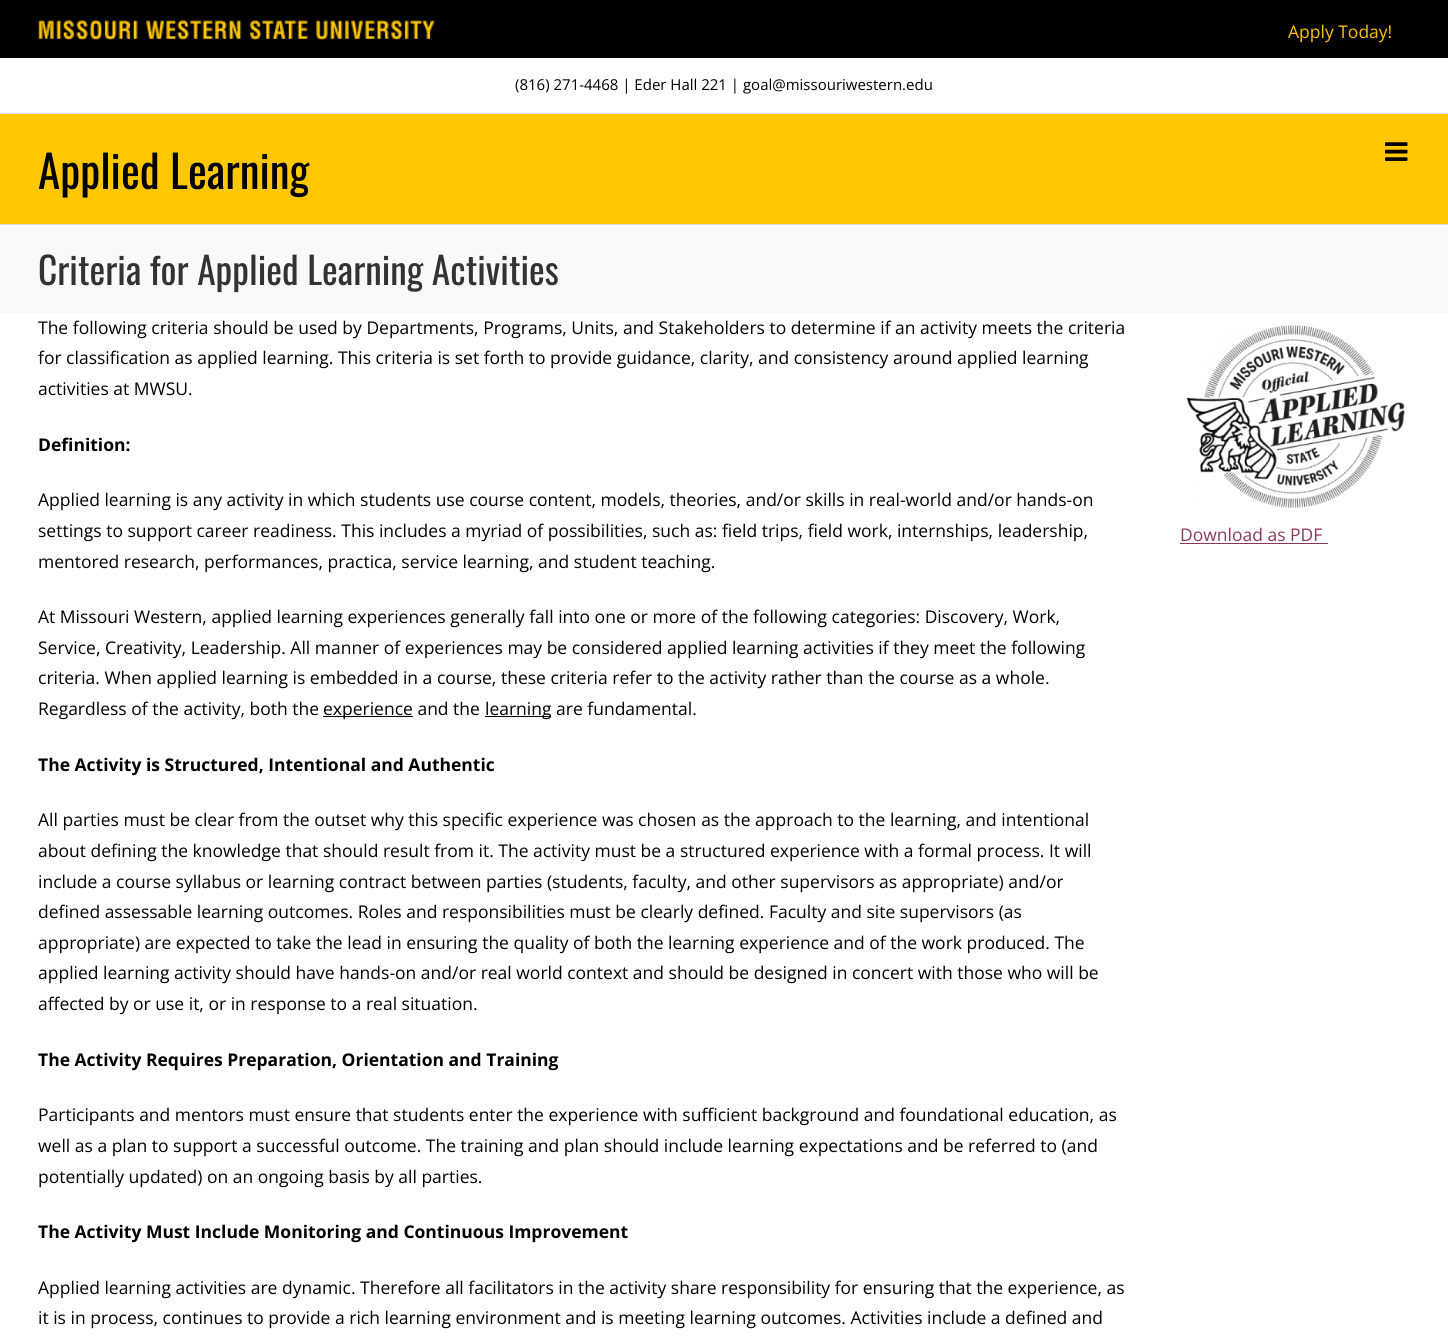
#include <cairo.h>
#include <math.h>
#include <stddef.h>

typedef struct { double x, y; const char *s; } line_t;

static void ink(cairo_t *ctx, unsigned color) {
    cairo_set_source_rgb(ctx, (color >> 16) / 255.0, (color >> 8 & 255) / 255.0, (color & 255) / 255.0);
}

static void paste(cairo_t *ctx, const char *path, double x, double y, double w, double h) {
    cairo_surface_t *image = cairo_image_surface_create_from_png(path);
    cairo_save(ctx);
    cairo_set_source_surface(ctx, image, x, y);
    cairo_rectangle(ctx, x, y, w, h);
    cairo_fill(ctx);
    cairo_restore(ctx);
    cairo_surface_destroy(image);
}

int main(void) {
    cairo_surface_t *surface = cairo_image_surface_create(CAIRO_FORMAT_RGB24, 1448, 1337);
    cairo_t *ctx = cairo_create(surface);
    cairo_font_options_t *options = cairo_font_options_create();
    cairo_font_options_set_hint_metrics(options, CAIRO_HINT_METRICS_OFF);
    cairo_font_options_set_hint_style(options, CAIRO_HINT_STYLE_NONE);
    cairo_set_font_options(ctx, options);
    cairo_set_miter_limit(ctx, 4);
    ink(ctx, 0xFFFFFF);
    cairo_paint(ctx);
    ink(ctx, 0x000000);
    cairo_rectangle(ctx, 0, 0, 1448, 58);
    cairo_fill(ctx);
    paste(ctx, "media/1.png", 38, 19, 398, 22);
    cairo_select_font_face(ctx, "Open Sans", CAIRO_FONT_SLANT_NORMAL, CAIRO_FONT_WEIGHT_NORMAL);
    cairo_set_font_size(ctx, 17.5);
    ink(ctx, 0xFEC20A);
    cairo_move_to(ctx, 1288, 38);
    cairo_show_text(ctx, "Apply Today!");
    ink(ctx, 0xDDDDDD);
    cairo_rectangle(ctx, 0, 113, 1448, 1);
    cairo_fill(ctx);
    cairo_set_font_size(ctx, 15);
    ink(ctx, 0x000000);
    cairo_move_to(ctx, 515, 90);
    cairo_show_text(ctx, "(816) 271-4468 | Eder Hall 221 | goal@missouriwestern.edu");
    ink(ctx, 0xFFC700);
    cairo_rectangle(ctx, 0, 114, 1448, 110);
    cairo_fill(ctx);
    ink(ctx, 0xDDDDDD);
    cairo_rectangle(ctx, 0, 224, 1448, 1);
    cairo_fill(ctx);
    cairo_select_font_face(ctx, "Oswald", CAIRO_FONT_SLANT_NORMAL, CAIRO_FONT_WEIGHT_NORMAL);
    cairo_set_font_size(ctx, 45);
    ink(ctx, 0x000000);
    cairo_move_to(ctx, 38, 189);
    cairo_show_text(ctx, "Applied Learning");
    paste(ctx, "media/2.png", 1385, 142, 23, 19);
    ink(ctx, 0xF9F9F9);
    cairo_rectangle(ctx, 0, 225, 1448, 88);
    cairo_fill(ctx);
    cairo_set_font_size(ctx, 37.5);
    ink(ctx, 0x333333);
    cairo_move_to(ctx, 38, 285);
    cairo_show_text(ctx, "Criteria for Applied Learning Activities");
    cairo_select_font_face(ctx, "Open Sans", CAIRO_FONT_SLANT_NORMAL, CAIRO_FONT_WEIGHT_NORMAL);
    cairo_set_font_size(ctx, 17.5);
    ink(ctx, 0x000000);
    {
        static const line_t items[] = {
            {38, 334, "The following criteria should be used by Departments, Programs, Units, and Stakeholders to determine if an activity meets the criteria"},
            {38, 364, "for classification as applied learning. This criteria is set forth to provide guidance, clarity, and consistency around applied learning"},
            {38, 395, "activities at MWSU."},
        };
        for (size_t i = 0; i < sizeof items / sizeof *items; i++) {
            cairo_move_to(ctx, items[i].x, items[i].y);
            cairo_show_text(ctx, items[i].s);
        }
    }
    cairo_select_font_face(ctx, "Open Sans", CAIRO_FONT_SLANT_NORMAL, CAIRO_FONT_WEIGHT_BOLD);
    cairo_move_to(ctx, 38, 451);
    cairo_show_text(ctx, "Definition:");
    cairo_select_font_face(ctx, "Open Sans", CAIRO_FONT_SLANT_NORMAL, CAIRO_FONT_WEIGHT_NORMAL);
    {
        static const line_t items[] = {
            {38, 506, "Applied learning is any activity in which students use course content, models, theories, and/or skills in real-world and/or hands-on"},
            {38, 537, "settings to support career readiness. This includes a myriad of possibilities, such as: field trips, field work, internships, leadership,"},
            {38, 568, "mentored research, performances, practica, service learning, and student teaching."},
            {38, 623, "At Missouri Western, applied learning experiences generally fall into one or more of the following categories: Discovery, Work,"},
            {38, 654, "Service, Creativity, Leadership. All manner of experiences may be considered applied learning activities if they meet the following"},
            {38, 684, "criteria. When applied learning is embedded in a course, these criteria refer to the activity rather than the course as a whole."},
            {38, 715, "Regardless of the activity, both the"},
        };
        for (size_t i = 0; i < sizeof items / sizeof *items; i++) {
            cairo_move_to(ctx, items[i].x, items[i].y);
            cairo_show_text(ctx, items[i].s);
        }
    }
    cairo_rectangle(ctx, 323, 716, 90, 1);
    cairo_fill(ctx);
    cairo_move_to(ctx, 323, 715);
    cairo_show_text(ctx, "experience and the");
    cairo_rectangle(ctx, 485, 716, 66, 1);
    cairo_fill(ctx);
    cairo_move_to(ctx, 485, 715);
    cairo_show_text(ctx, "learning are fundamental.");
    cairo_select_font_face(ctx, "Open Sans", CAIRO_FONT_SLANT_NORMAL, CAIRO_FONT_WEIGHT_BOLD);
    cairo_move_to(ctx, 38, 771);
    cairo_show_text(ctx, "The Activity is Structured, Intentional and Authentic");
    cairo_select_font_face(ctx, "Open Sans", CAIRO_FONT_SLANT_NORMAL, CAIRO_FONT_WEIGHT_NORMAL);
    {
        static const line_t items[] = {
            {38, 826, "All parties must be clear from the outset why this specific experience was chosen as the approach to the learning, and intentional"},
            {38, 857, "about defining the knowledge that should result from it. The activity must be a structured experience with a formal process. It will"},
            {38, 888, "include a course syllabus or learning contract between parties (students, faculty, and other supervisors as appropriate) and/or"},
            {38, 918, "defined assessable learning outcomes. Roles and responsibilities must be clearly defined. Faculty and site supervisors (as"},
            {38, 949, "appropriate) are expected to take the lead in ensuring the quality of both the learning experience and of the work produced. The"},
            {38, 979, "applied learning activity should have hands-on and/or real world context and should be designed in concert with those who will be"},
            {38, 1010, "affected by or use it, or in response to a real situation."},
        };
        for (size_t i = 0; i < sizeof items / sizeof *items; i++) {
            cairo_move_to(ctx, items[i].x, items[i].y);
            cairo_show_text(ctx, items[i].s);
        }
    }
    cairo_select_font_face(ctx, "Open Sans", CAIRO_FONT_SLANT_NORMAL, CAIRO_FONT_WEIGHT_BOLD);
    cairo_move_to(ctx, 38, 1066);
    cairo_show_text(ctx, "The Activity Requires Preparation, Orientation and Training");
    cairo_select_font_face(ctx, "Open Sans", CAIRO_FONT_SLANT_NORMAL, CAIRO_FONT_WEIGHT_NORMAL);
    {
        static const line_t items[] = {
            {38, 1121, "Participants and mentors must ensure that students enter the experience with sufficient background and foundational education, as"},
            {38, 1152, "well as a plan to support a successful outcome. The training and plan should include learning expectations and be referred to (and"},
            {38, 1183, "potentially updated) on an ongoing basis by all parties."},
        };
        for (size_t i = 0; i < sizeof items / sizeof *items; i++) {
            cairo_move_to(ctx, items[i].x, items[i].y);
            cairo_show_text(ctx, items[i].s);
        }
    }
    cairo_select_font_face(ctx, "Open Sans", CAIRO_FONT_SLANT_NORMAL, CAIRO_FONT_WEIGHT_BOLD);
    cairo_move_to(ctx, 38, 1238);
    cairo_show_text(ctx, "The Activity Must Include Monitoring and Continuous Improvement");
    cairo_select_font_face(ctx, "Open Sans", CAIRO_FONT_SLANT_NORMAL, CAIRO_FONT_WEIGHT_NORMAL);
    cairo_move_to(ctx, 38, 1294);
    cairo_show_text(ctx, "Applied learning activities are dynamic. Therefore all facilitators in the activity share responsibility for ensuring that the experience, as");
    cairo_move_to(ctx, 38, 1324);
    cairo_show_text(ctx, "it is in process, continues to provide a rich learning environment and is meeting learning outcomes. Activities include a defined and");
    paste(ctx, "media/3.png", 1187, 325, 218, 183);
    ink(ctx, 0x89385B);
    cairo_move_to(ctx, 1180, 541);
    cairo_show_text(ctx, "Download as PDF");
    cairo_rectangle(ctx, 1180, 543, 148, 1);
    cairo_fill(ctx);
    cairo_surface_write_to_png(surface, "image.png");
    cairo_font_options_destroy(options);
    cairo_destroy(ctx);
    cairo_surface_destroy(surface);
    return 0;
}
